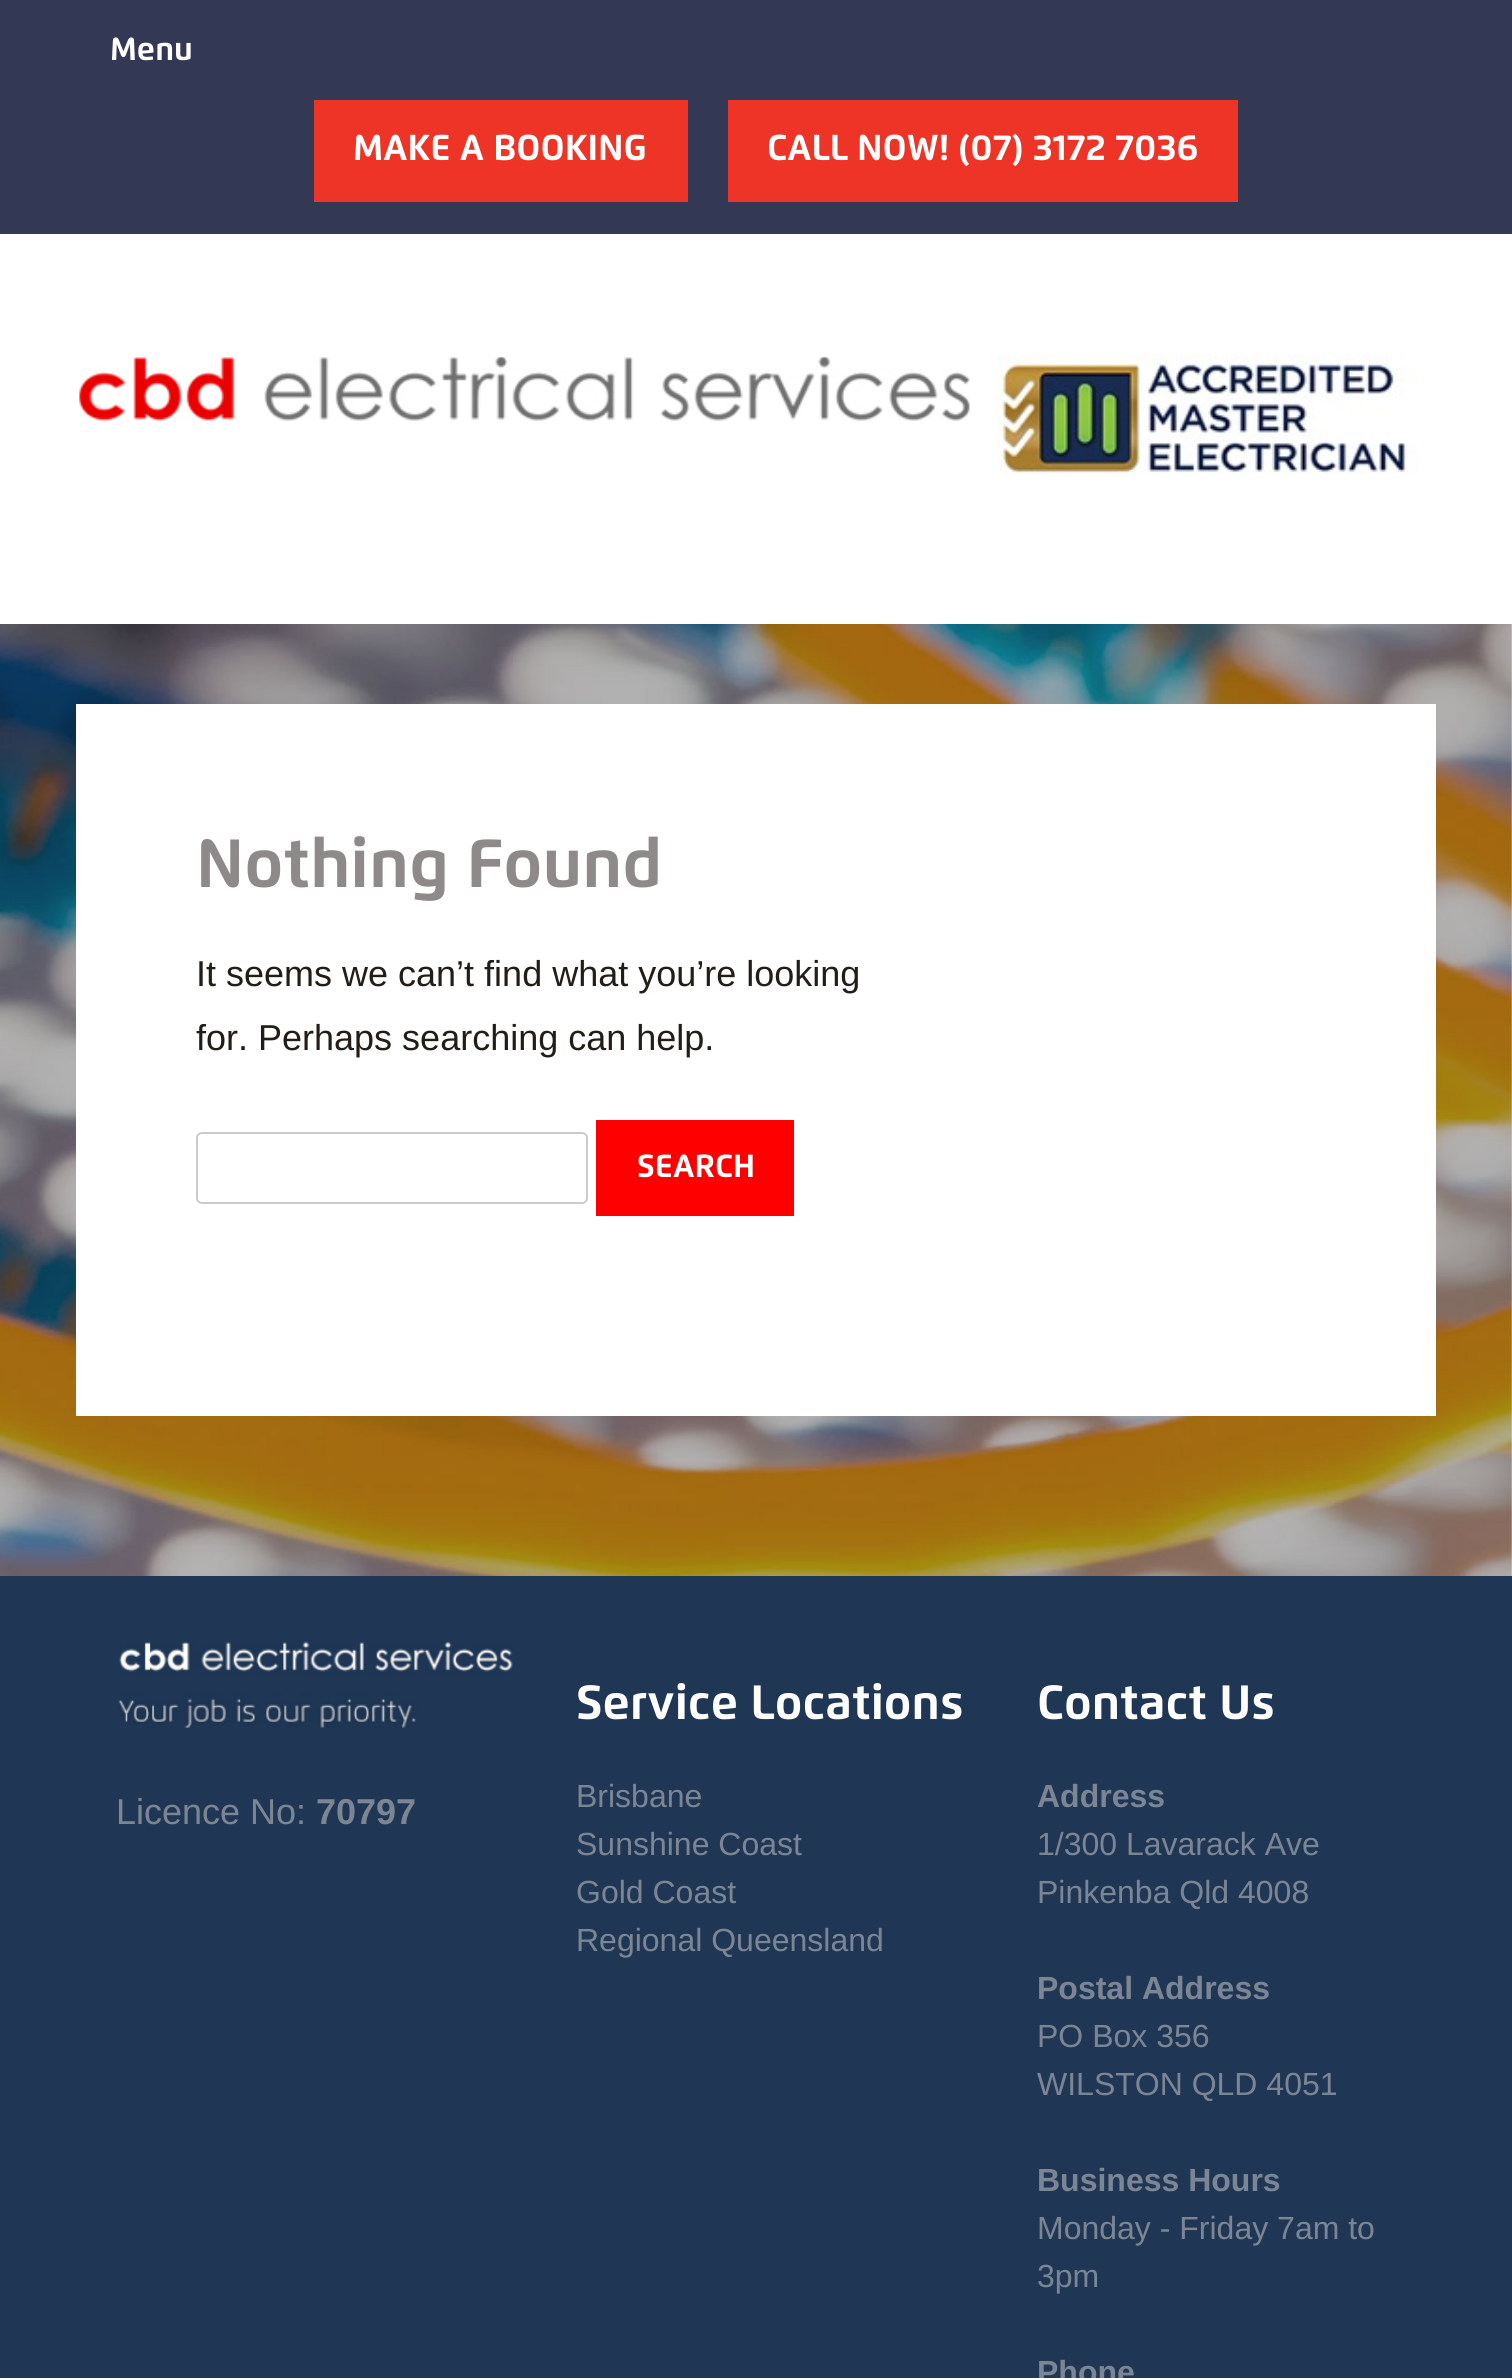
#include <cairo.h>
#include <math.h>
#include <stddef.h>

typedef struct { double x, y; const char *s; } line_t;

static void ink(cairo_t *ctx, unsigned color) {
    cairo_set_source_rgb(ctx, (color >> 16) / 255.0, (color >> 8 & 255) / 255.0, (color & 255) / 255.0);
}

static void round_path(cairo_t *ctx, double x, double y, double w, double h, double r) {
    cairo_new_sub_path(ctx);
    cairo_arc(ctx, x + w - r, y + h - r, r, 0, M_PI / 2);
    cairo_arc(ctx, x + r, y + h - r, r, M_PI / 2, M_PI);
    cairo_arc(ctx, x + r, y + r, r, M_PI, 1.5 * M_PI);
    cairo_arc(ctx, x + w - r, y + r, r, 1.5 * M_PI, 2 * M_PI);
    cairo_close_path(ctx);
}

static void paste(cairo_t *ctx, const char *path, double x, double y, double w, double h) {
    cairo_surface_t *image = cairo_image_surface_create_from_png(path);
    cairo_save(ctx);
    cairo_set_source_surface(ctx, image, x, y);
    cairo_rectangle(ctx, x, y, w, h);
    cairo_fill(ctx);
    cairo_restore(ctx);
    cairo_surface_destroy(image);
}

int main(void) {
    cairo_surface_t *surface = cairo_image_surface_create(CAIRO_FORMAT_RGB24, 1512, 2378);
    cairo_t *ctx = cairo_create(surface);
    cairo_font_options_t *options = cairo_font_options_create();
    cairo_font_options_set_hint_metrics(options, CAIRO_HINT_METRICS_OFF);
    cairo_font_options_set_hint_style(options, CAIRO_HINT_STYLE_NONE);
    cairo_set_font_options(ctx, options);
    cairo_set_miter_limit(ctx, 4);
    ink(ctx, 0xFFFFFF);
    cairo_paint(ctx);
    ink(ctx, 0x333854);
    cairo_rectangle(ctx, 0, 0, 1512, 234);
    cairo_fill(ctx);
    cairo_select_font_face(ctx, "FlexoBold", CAIRO_FONT_SLANT_NORMAL, CAIRO_FONT_WEIGHT_NORMAL);
    cairo_set_font_size(ctx, 32);
    ink(ctx, 0xFFFFFF);
    cairo_move_to(ctx, 110, 60);
    cairo_show_text(ctx, "Menu");
    ink(ctx, 0xED3426);
    cairo_rectangle(ctx, 314, 100, 374, 102);
    cairo_fill(ctx);
    cairo_set_font_size(ctx, 36);
    ink(ctx, 0xFFFFFF);
    cairo_move_to(ctx, 353, 160);
    cairo_show_text(ctx, "MAKE A BOOKING");
    ink(ctx, 0xED3426);
    cairo_rectangle(ctx, 728, 100, 510, 102);
    cairo_fill(ctx);
    ink(ctx, 0xFFFFFF);
    cairo_move_to(ctx, 767, 160);
    cairo_show_text(ctx, "CALL NOW! (07) 3172 7036");
    paste(ctx, "media/1.png", 79, 357, 891, 65);
    paste(ctx, "media/2.png", 998, 354, 421, 121);
    paste(ctx, "media/3.png", 0, 624, 1512, 952);
    cairo_rectangle(ctx, 76, 704, 1360, 712);
    cairo_fill(ctx);
    cairo_set_font_size(ctx, 68);
    ink(ctx, 0x8E8A8A);
    cairo_move_to(ctx, 196, 887);
    cairo_show_text(ctx, "Nothing Found");
    cairo_select_font_face(ctx, "Liberation Sans", CAIRO_FONT_SLANT_NORMAL, CAIRO_FONT_WEIGHT_NORMAL);
    cairo_set_font_size(ctx, 36);
    ink(ctx, 0x231D17);
    cairo_move_to(ctx, 196, 986);
    cairo_show_text(ctx, "It seems we can’t find what you’re looking");
    cairo_move_to(ctx, 196, 1050);
    cairo_show_text(ctx, "for. Perhaps searching can help.");
    round_path(ctx, 197, 1133, 390, 70, 5);
    ink(ctx, 0xCCCCCC);
    cairo_stroke(ctx);
    ink(ctx, 0xFF0000);
    cairo_rectangle(ctx, 596, 1120, 198, 96);
    cairo_fill(ctx);
    cairo_select_font_face(ctx, "FlexoBold", CAIRO_FONT_SLANT_NORMAL, CAIRO_FONT_WEIGHT_NORMAL);
    cairo_set_font_size(ctx, 32);
    ink(ctx, 0xFFFFFF);
    cairo_move_to(ctx, 637, 1177);
    cairo_show_text(ctx, "SEARCH");
    ink(ctx, 0x1F3755);
    cairo_rectangle(ctx, 0, 1576, 1512, 802);
    cairo_fill(ctx);
    paste(ctx, "media/4.png", 118, 1641, 395, 87);
    cairo_select_font_face(ctx, "Liberation Sans", CAIRO_FONT_SLANT_NORMAL, CAIRO_FONT_WEIGHT_NORMAL);
    cairo_set_font_size(ctx, 36);
    ink(ctx, 0x7C8593);
    cairo_move_to(ctx, 116, 1824);
    cairo_show_text(ctx, "Licence No:");
    cairo_select_font_face(ctx, "Liberation Sans", CAIRO_FONT_SLANT_NORMAL, CAIRO_FONT_WEIGHT_BOLD);
    cairo_move_to(ctx, 316, 1824);
    cairo_show_text(ctx, "70797");
    cairo_select_font_face(ctx, "FlexoBold", CAIRO_FONT_SLANT_NORMAL, CAIRO_FONT_WEIGHT_NORMAL);
    cairo_set_font_size(ctx, 48);
    ink(ctx, 0xFFFFFF);
    cairo_move_to(ctx, 576, 1719);
    cairo_show_text(ctx, "Service Locations");
    cairo_select_font_face(ctx, "Liberation Sans", CAIRO_FONT_SLANT_NORMAL, CAIRO_FONT_WEIGHT_NORMAL);
    cairo_set_font_size(ctx, 32);
    ink(ctx, 0x7C8593);
    {
        static const line_t items[] = {
            {576, 1807, "Brisbane"},
            {576, 1855, "Sunshine Coast"},
            {576, 1903, "Gold Coast"},
            {576, 1951, "Regional Queensland"},
        };
        for (size_t i = 0; i < sizeof items / sizeof *items; i++) {
            cairo_move_to(ctx, items[i].x, items[i].y);
            cairo_show_text(ctx, items[i].s);
        }
    }
    cairo_select_font_face(ctx, "FlexoBold", CAIRO_FONT_SLANT_NORMAL, CAIRO_FONT_WEIGHT_NORMAL);
    cairo_set_font_size(ctx, 48);
    ink(ctx, 0xFFFFFF);
    cairo_move_to(ctx, 1037, 1719);
    cairo_show_text(ctx, "Contact Us");
    cairo_select_font_face(ctx, "Liberation Sans", CAIRO_FONT_SLANT_NORMAL, CAIRO_FONT_WEIGHT_BOLD);
    cairo_set_font_size(ctx, 32);
    ink(ctx, 0x7C8593);
    cairo_move_to(ctx, 1037, 1807);
    cairo_show_text(ctx, "Address");
    cairo_select_font_face(ctx, "Liberation Sans", CAIRO_FONT_SLANT_NORMAL, CAIRO_FONT_WEIGHT_NORMAL);
    cairo_move_to(ctx, 1037, 1855);
    cairo_show_text(ctx, "1/300 Lavarack Ave");
    cairo_move_to(ctx, 1037, 1903);
    cairo_show_text(ctx, "Pinkenba Qld 4008");
    cairo_select_font_face(ctx, "Liberation Sans", CAIRO_FONT_SLANT_NORMAL, CAIRO_FONT_WEIGHT_BOLD);
    cairo_move_to(ctx, 1037, 1999);
    cairo_show_text(ctx, "Postal Address");
    cairo_select_font_face(ctx, "Liberation Sans", CAIRO_FONT_SLANT_NORMAL, CAIRO_FONT_WEIGHT_NORMAL);
    cairo_move_to(ctx, 1037, 2047);
    cairo_show_text(ctx, "PO Box 356");
    cairo_move_to(ctx, 1037, 2095);
    cairo_show_text(ctx, "WILSTON QLD 4051");
    cairo_select_font_face(ctx, "Liberation Sans", CAIRO_FONT_SLANT_NORMAL, CAIRO_FONT_WEIGHT_BOLD);
    cairo_move_to(ctx, 1037, 2191);
    cairo_show_text(ctx, "Business Hours");
    cairo_select_font_face(ctx, "Liberation Sans", CAIRO_FONT_SLANT_NORMAL, CAIRO_FONT_WEIGHT_NORMAL);
    cairo_move_to(ctx, 1037, 2239);
    cairo_show_text(ctx, "Monday - Friday 7am to");
    cairo_move_to(ctx, 1037, 2287);
    cairo_show_text(ctx, "3pm");
    cairo_select_font_face(ctx, "Liberation Sans", CAIRO_FONT_SLANT_NORMAL, CAIRO_FONT_WEIGHT_BOLD);
    cairo_move_to(ctx, 1037, 2383);
    cairo_show_text(ctx, "Phone");
    cairo_surface_write_to_png(surface, "image.png");
    cairo_font_options_destroy(options);
    cairo_destroy(ctx);
    cairo_surface_destroy(surface);
    return 0;
}
